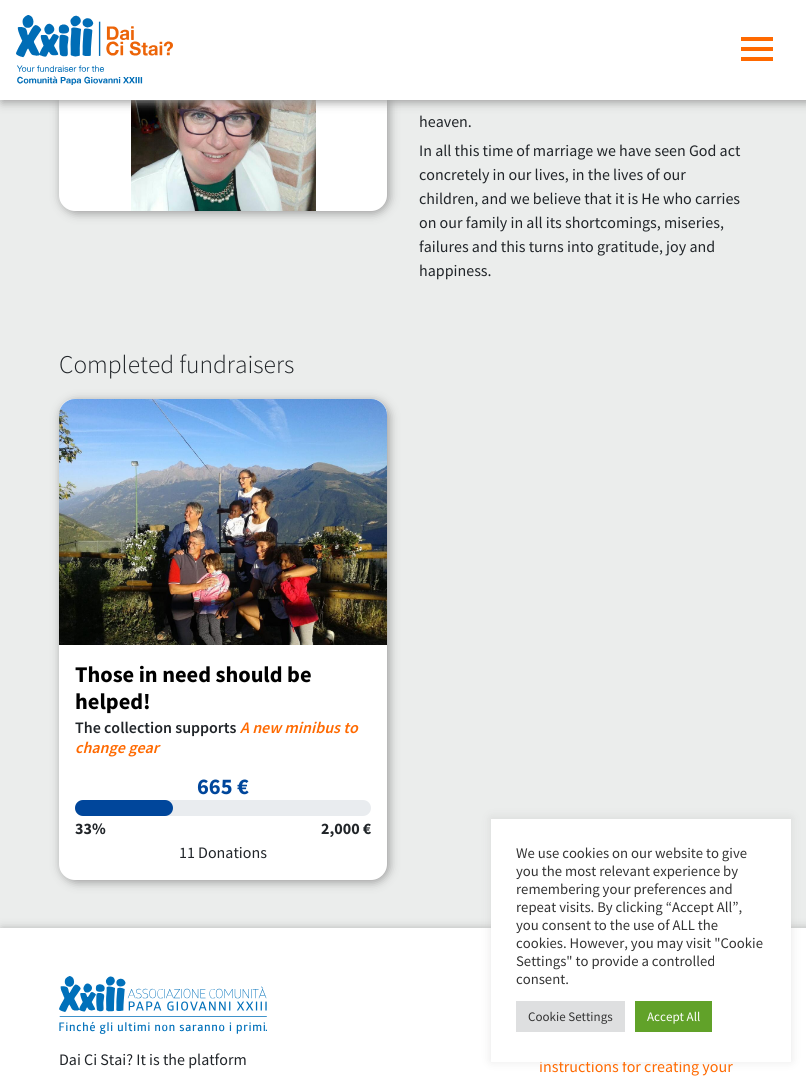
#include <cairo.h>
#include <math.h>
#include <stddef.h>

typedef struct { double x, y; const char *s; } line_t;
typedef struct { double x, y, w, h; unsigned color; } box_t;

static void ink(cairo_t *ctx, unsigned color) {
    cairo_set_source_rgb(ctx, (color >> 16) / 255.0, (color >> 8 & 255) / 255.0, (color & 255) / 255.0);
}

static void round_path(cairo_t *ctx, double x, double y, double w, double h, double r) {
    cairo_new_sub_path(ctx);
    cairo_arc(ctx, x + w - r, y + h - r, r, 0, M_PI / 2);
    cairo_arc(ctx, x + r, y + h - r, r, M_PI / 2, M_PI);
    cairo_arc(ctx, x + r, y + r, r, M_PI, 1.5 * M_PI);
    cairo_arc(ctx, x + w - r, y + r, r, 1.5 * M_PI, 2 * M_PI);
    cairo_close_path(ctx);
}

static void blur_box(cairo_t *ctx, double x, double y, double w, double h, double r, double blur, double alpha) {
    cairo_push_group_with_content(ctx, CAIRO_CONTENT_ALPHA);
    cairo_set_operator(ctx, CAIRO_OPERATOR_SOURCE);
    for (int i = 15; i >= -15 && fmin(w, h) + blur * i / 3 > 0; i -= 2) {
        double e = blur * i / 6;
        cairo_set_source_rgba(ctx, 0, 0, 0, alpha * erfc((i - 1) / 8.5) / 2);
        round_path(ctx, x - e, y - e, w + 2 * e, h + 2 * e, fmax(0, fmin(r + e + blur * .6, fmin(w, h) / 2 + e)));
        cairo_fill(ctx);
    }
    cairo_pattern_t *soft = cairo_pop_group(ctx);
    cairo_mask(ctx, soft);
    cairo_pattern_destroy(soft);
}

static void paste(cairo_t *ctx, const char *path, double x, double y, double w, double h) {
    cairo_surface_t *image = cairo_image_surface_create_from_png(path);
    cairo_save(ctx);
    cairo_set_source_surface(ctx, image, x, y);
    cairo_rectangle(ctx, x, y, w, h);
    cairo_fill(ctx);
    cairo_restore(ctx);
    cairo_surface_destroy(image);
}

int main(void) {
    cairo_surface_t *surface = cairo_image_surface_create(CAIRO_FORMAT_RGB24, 806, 1077);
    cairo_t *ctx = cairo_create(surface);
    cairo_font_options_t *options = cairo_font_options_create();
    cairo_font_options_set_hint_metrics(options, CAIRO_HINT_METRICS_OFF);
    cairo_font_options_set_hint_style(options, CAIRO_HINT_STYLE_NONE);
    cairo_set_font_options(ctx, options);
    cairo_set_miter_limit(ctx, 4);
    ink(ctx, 0xEBEDEC);
    cairo_paint(ctx);
    ink(ctx, 0x999999);
    blur_box(ctx, 61, 28, 328, 185, 16, 5, 1);
    ink(ctx, 0xFFFFFF);
    round_path(ctx, 59, 26, 328, 185, 16);
    cairo_fill(ctx);
    paste(ctx, "media/2.png", 131, 100, 185, 111);
    ink(ctx, 0x999999);
    blur_box(ctx, 2, 2, 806, 100, 0, 5, 1);
    ink(ctx, 0xFFFFFF);
    cairo_rectangle(ctx, 0, 0, 806, 100);
    cairo_fill(ctx);
    paste(ctx, "media/1.png", 16, 15, 157, 70);
    {
        static const box_t items[] = {
            {741, 37, 32, 4, 0xFF6900},
            {741, 47, 32, 4, 0xFF6900},
            {741, 57, 32, 4, 0xFF6900},
        };
        for (size_t i = 0; i < sizeof items / sizeof *items; i++) {
            ink(ctx, items[i].color);
            cairo_rectangle(ctx, items[i].x, items[i].y, items[i].w, items[i].h);
            cairo_fill(ctx);
        }
    }
    cairo_select_font_face(ctx, "Source Sans Pro", CAIRO_FONT_SLANT_NORMAL, CAIRO_FONT_WEIGHT_NORMAL);
    cairo_set_font_size(ctx, 16);
    ink(ctx, 0x212529);
    {
        static const line_t items[] = {
            {419, 127, "heaven."},
            {419, 156, "In all this time of marriage we have seen God act"},
            {419, 180, "concretely in our lives, in the lives of our"},
            {419, 204, "children, and we believe that it is He who carries"},
            {419, 228, "on our family in all its shortcomings, miseries,"},
            {419, 252, "failures and this turns into gratitude, joy and"},
            {419, 276, "happiness."},
        };
        for (size_t i = 0; i < sizeof items / sizeof *items; i++) {
            cairo_move_to(ctx, items[i].x, items[i].y);
            cairo_show_text(ctx, items[i].s);
        }
    }
    cairo_select_font_face(ctx, "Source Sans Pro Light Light", CAIRO_FONT_SLANT_NORMAL, CAIRO_FONT_WEIGHT_NORMAL);
    cairo_set_font_size(ctx, 25.5);
    cairo_move_to(ctx, 59, 373);
    cairo_show_text(ctx, "Completed fundraisers");
    ink(ctx, 0x999999);
    blur_box(ctx, 61, 401, 328, 481, 16, 5, 1);
    ink(ctx, 0xFFFFFF);
    round_path(ctx, 59, 399, 328, 481, 16);
    cairo_fill(ctx);
    cairo_new_path(ctx);
    cairo_move_to(ctx, 75, 399);
    cairo_line_to(ctx, 371, 399);
    cairo_curve_to(ctx, 380, 399, 387, 406, 387, 415);
    cairo_line_to(ctx, 387, 645);
    cairo_line_to(ctx, 59, 645);
    cairo_line_to(ctx, 59, 415);
    cairo_curve_to(ctx, 59, 406, 66, 399, 75, 399);
    cairo_close_path(ctx);
    cairo_fill(ctx);
    paste(ctx, "media/3.png", 59, 399, 328, 246);
    cairo_select_font_face(ctx, "Source Sans Pro", CAIRO_FONT_SLANT_NORMAL, CAIRO_FONT_WEIGHT_BOLD);
    cairo_set_font_size(ctx, 22.4);
    ink(ctx, 0x000000);
    cairo_move_to(ctx, 75, 682);
    cairo_show_text(ctx, "Those in need should be");
    cairo_move_to(ctx, 75, 709);
    cairo_show_text(ctx, "helped!");
    cairo_select_font_face(ctx, "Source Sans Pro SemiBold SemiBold", CAIRO_FONT_SLANT_NORMAL, CAIRO_FONT_WEIGHT_NORMAL);
    cairo_set_font_size(ctx, 16);
    ink(ctx, 0x212529);
    cairo_move_to(ctx, 75, 733);
    cairo_show_text(ctx, "The collection supports");
    cairo_select_font_face(ctx, "Source Sans Pro SemiBold SemiBold", CAIRO_FONT_SLANT_ITALIC, CAIRO_FONT_WEIGHT_NORMAL);
    ink(ctx, 0xFF6900);
    cairo_move_to(ctx, 240, 733);
    cairo_show_text(ctx, "A new minibus to");
    cairo_move_to(ctx, 75, 753);
    cairo_show_text(ctx, "change gear");
    cairo_select_font_face(ctx, "Source Sans Pro", CAIRO_FONT_SLANT_NORMAL, CAIRO_FONT_WEIGHT_BOLD);
    cairo_set_font_size(ctx, 22.4);
    ink(ctx, 0x00469B);
    cairo_move_to(ctx, 197, 794);
    cairo_show_text(ctx, "665 €");
    ink(ctx, 0xE9ECEF);
    round_path(ctx, 75, 800, 296, 16, 8);
    cairo_fill(ctx);
    ink(ctx, 0x00469B);
    round_path(ctx, 75, 800, 98, 16, 8);
    cairo_fill(ctx);
    cairo_set_font_size(ctx, 16);
    ink(ctx, 0x212529);
    cairo_move_to(ctx, 75, 834);
    cairo_show_text(ctx, "33%");
    cairo_move_to(ctx, 321, 834);
    cairo_show_text(ctx, "2,000 €");
    cairo_select_font_face(ctx, "Source Sans Pro", CAIRO_FONT_SLANT_NORMAL, CAIRO_FONT_WEIGHT_NORMAL);
    cairo_move_to(ctx, 179, 858);
    cairo_show_text(ctx, "11 Donations");
    ink(ctx, 0x999999);
    blur_box(ctx, 2, 930, 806, 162, 0, 5, 1);
    ink(ctx, 0xFFFFFF);
    cairo_rectangle(ctx, 0, 928, 806, 149);
    cairo_fill(ctx);
    ink(ctx, 0xACABAB);
    blur_box(ctx, 491, 818, 300, 243, 0, 5, 0.3);
    ink(ctx, 0xFF6900);
    cairo_move_to(ctx, 539, 1072);
    cairo_show_text(ctx, "instructions for creating your");
    ink(ctx, 0xFFFFFF);
    cairo_rectangle(ctx, 491, 819, 300, 243);
    cairo_fill(ctx);
    cairo_set_font_size(ctx, 14.7);
    ink(ctx, 0x333333);
    {
        static const line_t items[] = {
            {516, 858, "We use cookies on our website to give"},
            {516, 876, "you the most relevant experience by"},
            {516, 894, "remembering your preferences and"},
            {516, 912, "repeat visits. By clicking “Accept All”,"},
            {516, 930, "you consent to the use of ALL the"},
            {516, 948, "cookies. However, you may visit \"Cookie"},
            {516, 966, "Settings\" to provide a controlled"},
            {516, 984, "consent."},
        };
        for (size_t i = 0; i < sizeof items / sizeof *items; i++) {
            cairo_move_to(ctx, items[i].x, items[i].y);
            cairo_show_text(ctx, items[i].s);
        }
    }
    ink(ctx, 0xDEDFE0);
    cairo_rectangle(ctx, 516, 1001, 109, 31);
    cairo_fill(ctx);
    cairo_set_font_size(ctx, 13);
    ink(ctx, 0x333333);
    cairo_move_to(ctx, 528, 1021);
    cairo_show_text(ctx, "Cookie Settings");
    ink(ctx, 0x61A229);
    cairo_rectangle(ctx, 635, 1001, 77, 31);
    cairo_fill(ctx);
    ink(ctx, 0xFFFFFF);
    cairo_move_to(ctx, 647, 1021);
    cairo_show_text(ctx, "Accept All");
    paste(ctx, "media/4.png", 59, 976, 208, 58);
    cairo_set_font_size(ctx, 16);
    ink(ctx, 0x212529);
    cairo_move_to(ctx, 59, 1065);
    cairo_show_text(ctx, "Dai Ci Stai? It is the platform");
    cairo_surface_write_to_png(surface, "image.png");
    cairo_font_options_destroy(options);
    cairo_destroy(ctx);
    cairo_surface_destroy(surface);
    return 0;
}
